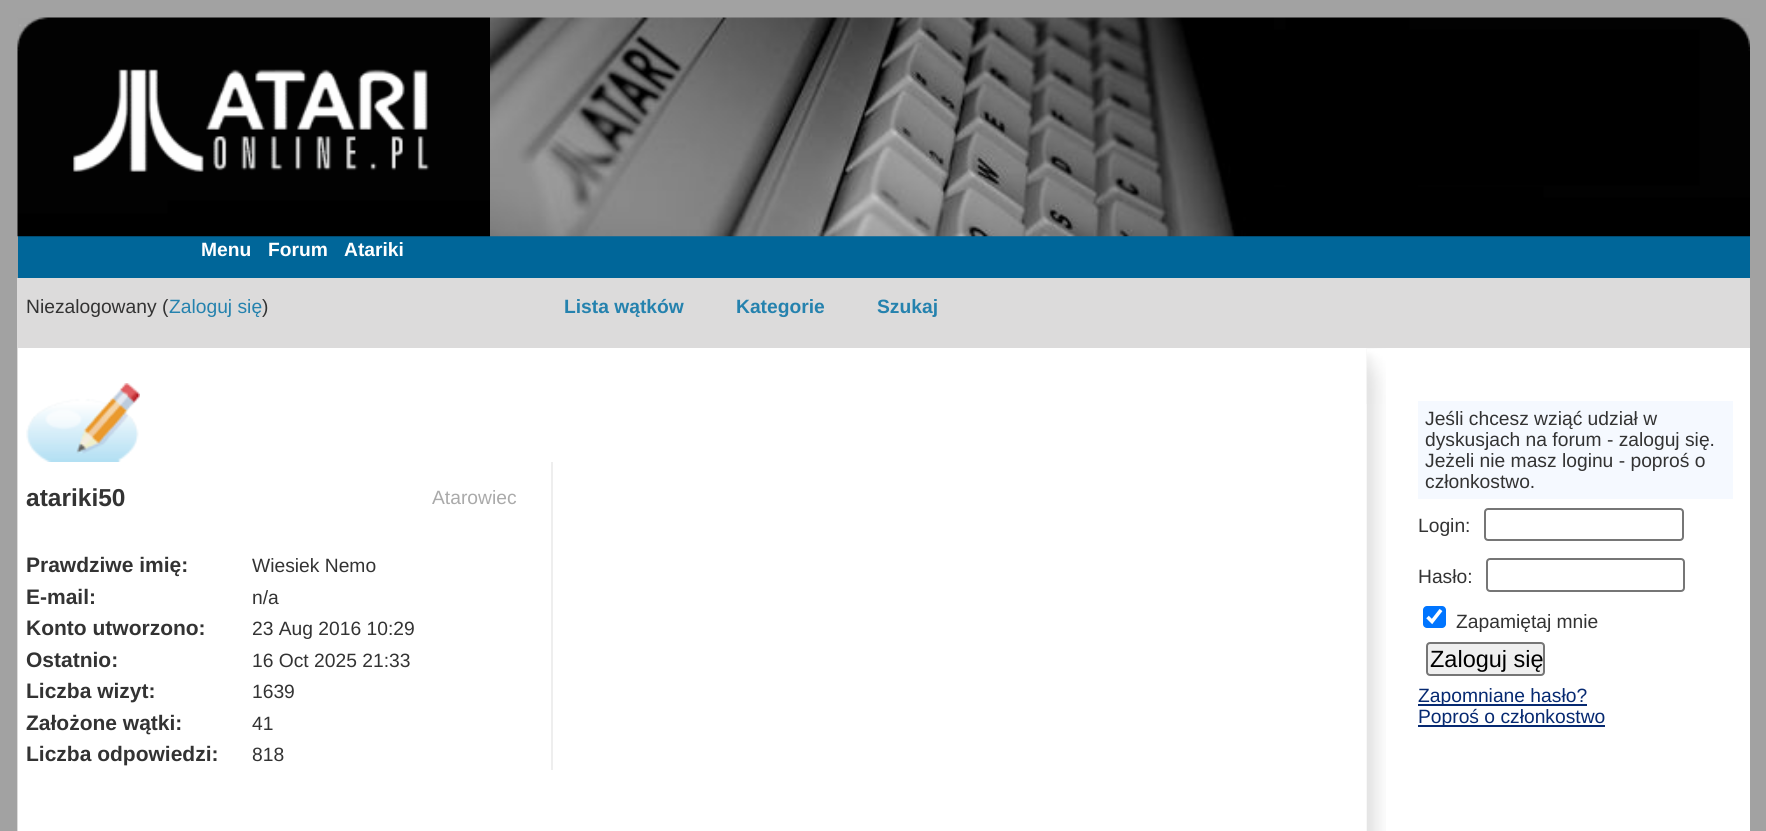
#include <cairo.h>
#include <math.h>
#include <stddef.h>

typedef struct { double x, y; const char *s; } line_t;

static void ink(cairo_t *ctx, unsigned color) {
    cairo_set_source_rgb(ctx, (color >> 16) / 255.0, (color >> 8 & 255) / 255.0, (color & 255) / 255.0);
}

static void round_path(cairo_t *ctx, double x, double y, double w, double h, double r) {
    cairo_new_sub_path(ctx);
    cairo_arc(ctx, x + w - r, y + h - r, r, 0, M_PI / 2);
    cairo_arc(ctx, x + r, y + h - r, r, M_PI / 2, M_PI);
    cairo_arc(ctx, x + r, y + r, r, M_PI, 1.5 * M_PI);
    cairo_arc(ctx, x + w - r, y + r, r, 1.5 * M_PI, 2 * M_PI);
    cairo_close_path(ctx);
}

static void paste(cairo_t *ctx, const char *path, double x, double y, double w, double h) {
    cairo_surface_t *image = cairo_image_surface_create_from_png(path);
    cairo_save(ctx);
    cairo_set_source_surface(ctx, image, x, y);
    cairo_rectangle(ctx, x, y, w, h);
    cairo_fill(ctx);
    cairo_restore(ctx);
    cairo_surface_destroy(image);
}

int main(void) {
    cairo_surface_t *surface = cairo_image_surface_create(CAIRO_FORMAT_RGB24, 1766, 831);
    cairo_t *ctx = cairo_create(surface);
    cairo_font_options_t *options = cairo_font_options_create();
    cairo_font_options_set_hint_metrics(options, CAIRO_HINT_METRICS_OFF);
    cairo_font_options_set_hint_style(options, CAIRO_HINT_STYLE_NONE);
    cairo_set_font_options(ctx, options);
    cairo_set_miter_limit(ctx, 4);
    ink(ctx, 0xA2A2A2);
    cairo_paint(ctx);
    ink(ctx, 0x006699);
    cairo_rectangle(ctx, 18, 236, 1732, 42);
    cairo_fill(ctx);
    paste(ctx, "media/1.png", 17, 17, 473, 220);
    paste(ctx, "media/2.png", 490, 17, 784, 220);
    paste(ctx, "media/3.png", 1274, 17, 476, 220);
    cairo_select_font_face(ctx, "Liberation Sans", CAIRO_FONT_SLANT_NORMAL, CAIRO_FONT_WEIGHT_BOLD);
    cairo_set_font_size(ctx, 19.25);
    ink(ctx, 0xFFFFFF);
    {
        static const line_t items[] = {
            {201, 256, "Menu"},
            {268, 256, "Forum"},
            {344, 256, "Atariki"},
        };
        for (size_t i = 0; i < sizeof items / sizeof *items; i++) {
            cairo_move_to(ctx, items[i].x, items[i].y);
            cairo_show_text(ctx, items[i].s);
        }
    }
    ink(ctx, 0xDCDBDB);
    cairo_rectangle(ctx, 17, 278, 1733, 553);
    cairo_fill(ctx);
    cairo_select_font_face(ctx, "Liberation Sans", CAIRO_FONT_SLANT_NORMAL, CAIRO_FONT_WEIGHT_NORMAL);
    ink(ctx, 0x333333);
    cairo_move_to(ctx, 26, 313);
    cairo_show_text(ctx, "Niezalogowany (");
    ink(ctx, 0x2582AE);
    cairo_move_to(ctx, 169, 313);
    cairo_show_text(ctx, "Zaloguj się");
    ink(ctx, 0x333333);
    cairo_move_to(ctx, 262, 313);
    cairo_show_text(ctx, ")");
    cairo_select_font_face(ctx, "Liberation Sans", CAIRO_FONT_SLANT_NORMAL, CAIRO_FONT_WEIGHT_BOLD);
    ink(ctx, 0x2582AE);
    {
        static const line_t items[] = {
            {564, 313, "Lista wątków"},
            {736, 313, "Kategorie"},
            {877, 313, "Szukaj"},
        };
        for (size_t i = 0; i < sizeof items / sizeof *items; i++) {
            cairo_move_to(ctx, items[i].x, items[i].y);
            cairo_show_text(ctx, items[i].s);
        }
    }
    ink(ctx, 0xFFFFFF);
    cairo_rectangle(ctx, 18, 348, 1732, 483);
    cairo_fill(ctx);
    paste(ctx, "media/4.png", 1366, 348, 20, 483);
    paste(ctx, "media/5.png", 1366, 348, 20, 56);
    paste(ctx, "media/6.png", 26, 383, 114, 79);
    ink(ctx, 0xEEEEEE);
    cairo_rectangle(ctx, 551, 462, 2, 308);
    cairo_fill(ctx);
    cairo_set_font_size(ctx, 24.5);
    ink(ctx, 0x333333);
    cairo_move_to(ctx, 26, 506);
    cairo_show_text(ctx, "atariki50");
    cairo_select_font_face(ctx, "Liberation Sans", CAIRO_FONT_SLANT_NORMAL, CAIRO_FONT_WEIGHT_NORMAL);
    cairo_set_font_size(ctx, 19.25);
    ink(ctx, 0xAAAAAA);
    cairo_move_to(ctx, 432, 504);
    cairo_show_text(ctx, "Atarowiec");
    cairo_select_font_face(ctx, "Liberation Sans", CAIRO_FONT_SLANT_NORMAL, CAIRO_FONT_WEIGHT_BOLD);
    cairo_set_font_size(ctx, 21);
    ink(ctx, 0x333333);
    cairo_move_to(ctx, 26, 572);
    cairo_show_text(ctx, "Prawdziwe imię:");
    cairo_select_font_face(ctx, "Liberation Sans", CAIRO_FONT_SLANT_NORMAL, CAIRO_FONT_WEIGHT_NORMAL);
    cairo_set_font_size(ctx, 19.25);
    cairo_move_to(ctx, 252, 572);
    cairo_show_text(ctx, "Wiesiek Nemo");
    cairo_select_font_face(ctx, "Liberation Sans", CAIRO_FONT_SLANT_NORMAL, CAIRO_FONT_WEIGHT_BOLD);
    cairo_set_font_size(ctx, 21);
    cairo_move_to(ctx, 26, 604);
    cairo_show_text(ctx, "E-mail:");
    cairo_select_font_face(ctx, "Liberation Sans", CAIRO_FONT_SLANT_NORMAL, CAIRO_FONT_WEIGHT_NORMAL);
    cairo_set_font_size(ctx, 19.25);
    cairo_move_to(ctx, 252, 604);
    cairo_show_text(ctx, "n/a");
    cairo_select_font_face(ctx, "Liberation Sans", CAIRO_FONT_SLANT_NORMAL, CAIRO_FONT_WEIGHT_BOLD);
    cairo_set_font_size(ctx, 21);
    cairo_move_to(ctx, 26, 635);
    cairo_show_text(ctx, "Konto utworzono:");
    cairo_select_font_face(ctx, "Liberation Sans", CAIRO_FONT_SLANT_NORMAL, CAIRO_FONT_WEIGHT_NORMAL);
    cairo_set_font_size(ctx, 19.25);
    cairo_move_to(ctx, 252, 635);
    cairo_show_text(ctx, "23 Aug 2016 10:29");
    cairo_select_font_face(ctx, "Liberation Sans", CAIRO_FONT_SLANT_NORMAL, CAIRO_FONT_WEIGHT_BOLD);
    cairo_set_font_size(ctx, 21);
    cairo_move_to(ctx, 26, 667);
    cairo_show_text(ctx, "Ostatnio:");
    cairo_select_font_face(ctx, "Liberation Sans", CAIRO_FONT_SLANT_NORMAL, CAIRO_FONT_WEIGHT_NORMAL);
    cairo_set_font_size(ctx, 19.25);
    cairo_move_to(ctx, 252, 667);
    cairo_show_text(ctx, "16 Oct 2025 21:33");
    cairo_select_font_face(ctx, "Liberation Sans", CAIRO_FONT_SLANT_NORMAL, CAIRO_FONT_WEIGHT_BOLD);
    cairo_set_font_size(ctx, 21);
    cairo_move_to(ctx, 26, 698);
    cairo_show_text(ctx, "Liczba wizyt:");
    cairo_select_font_face(ctx, "Liberation Sans", CAIRO_FONT_SLANT_NORMAL, CAIRO_FONT_WEIGHT_NORMAL);
    cairo_set_font_size(ctx, 19.25);
    cairo_move_to(ctx, 252, 698);
    cairo_show_text(ctx, "1639");
    cairo_select_font_face(ctx, "Liberation Sans", CAIRO_FONT_SLANT_NORMAL, CAIRO_FONT_WEIGHT_BOLD);
    cairo_set_font_size(ctx, 21);
    cairo_move_to(ctx, 26, 730);
    cairo_show_text(ctx, "Założone wątki:");
    cairo_select_font_face(ctx, "Liberation Sans", CAIRO_FONT_SLANT_NORMAL, CAIRO_FONT_WEIGHT_NORMAL);
    cairo_set_font_size(ctx, 19.25);
    cairo_move_to(ctx, 252, 730);
    cairo_show_text(ctx, "41");
    cairo_select_font_face(ctx, "Liberation Sans", CAIRO_FONT_SLANT_NORMAL, CAIRO_FONT_WEIGHT_BOLD);
    cairo_set_font_size(ctx, 21);
    cairo_move_to(ctx, 26, 761);
    cairo_show_text(ctx, "Liczba odpowiedzi:");
    cairo_select_font_face(ctx, "Liberation Sans", CAIRO_FONT_SLANT_NORMAL, CAIRO_FONT_WEIGHT_NORMAL);
    cairo_set_font_size(ctx, 19.25);
    cairo_move_to(ctx, 252, 761);
    cairo_show_text(ctx, "818");
    ink(ctx, 0xF5F9FF);
    cairo_rectangle(ctx, 1418, 401, 315, 98);
    cairo_fill(ctx);
    ink(ctx, 0x333333);
    {
        static const line_t items[] = {
            {1425, 425, "Jeśli chcesz wziąć udział w"},
            {1425, 446, "dyskusjach na forum - zaloguj się."},
            {1425, 467, "Jeżeli nie masz loginu - poproś o"},
            {1425, 488, "członkostwo."},
            {1418, 532, "Login:"},
        };
        for (size_t i = 0; i < sizeof items / sizeof *items; i++) {
            cairo_move_to(ctx, items[i].x, items[i].y);
            cairo_show_text(ctx, items[i].s);
        }
    }
    round_path(ctx, 1485, 509, 198, 31, 3);
    ink(ctx, 0x767676);
    cairo_stroke(ctx);
    ink(ctx, 0x333333);
    cairo_move_to(ctx, 1418, 583);
    cairo_show_text(ctx, "Hasło:");
    round_path(ctx, 1487, 559, 197, 32, 3);
    ink(ctx, 0x767676);
    cairo_stroke(ctx);
    ink(ctx, 0x0075FF);
    round_path(ctx, 1423, 606, 23, 22, 4);
    cairo_fill(ctx);
    cairo_new_path(ctx);
    cairo_move_to(ctx, 1427.5, 617);
    cairo_line_to(ctx, 1432, 621.5);
    cairo_line_to(ctx, 1441, 610);
    ink(ctx, 0xFFFFFF);
    cairo_set_line_width(ctx, 3.6);
    cairo_stroke(ctx);
    ink(ctx, 0x333333);
    cairo_move_to(ctx, 1456, 628);
    cairo_show_text(ctx, "Zapamiętaj mnie");
    ink(ctx, 0xEFEFEF);
    round_path(ctx, 1427, 643, 117, 32, 3);
    cairo_fill_preserve(ctx);
    ink(ctx, 0x767676);
    cairo_set_line_width(ctx, 2);
    cairo_stroke(ctx);
    cairo_set_font_size(ctx, 23.5);
    ink(ctx, 0x000000);
    cairo_move_to(ctx, 1430, 667);
    cairo_show_text(ctx, "Zaloguj się");
    ink(ctx, 0x062971);
    cairo_rectangle(ctx, 1418, 704, 169, 2);
    cairo_fill(ctx);
    cairo_set_font_size(ctx, 19.25);
    cairo_move_to(ctx, 1418, 702);
    cairo_show_text(ctx, "Zapomniane hasło?");
    cairo_rectangle(ctx, 1418, 725, 187, 2);
    cairo_fill(ctx);
    cairo_move_to(ctx, 1418, 723);
    cairo_show_text(ctx, "Poproś o członkostwo");
    cairo_surface_write_to_png(surface, "image.png");
    cairo_font_options_destroy(options);
    cairo_destroy(ctx);
    cairo_surface_destroy(surface);
    return 0;
}
